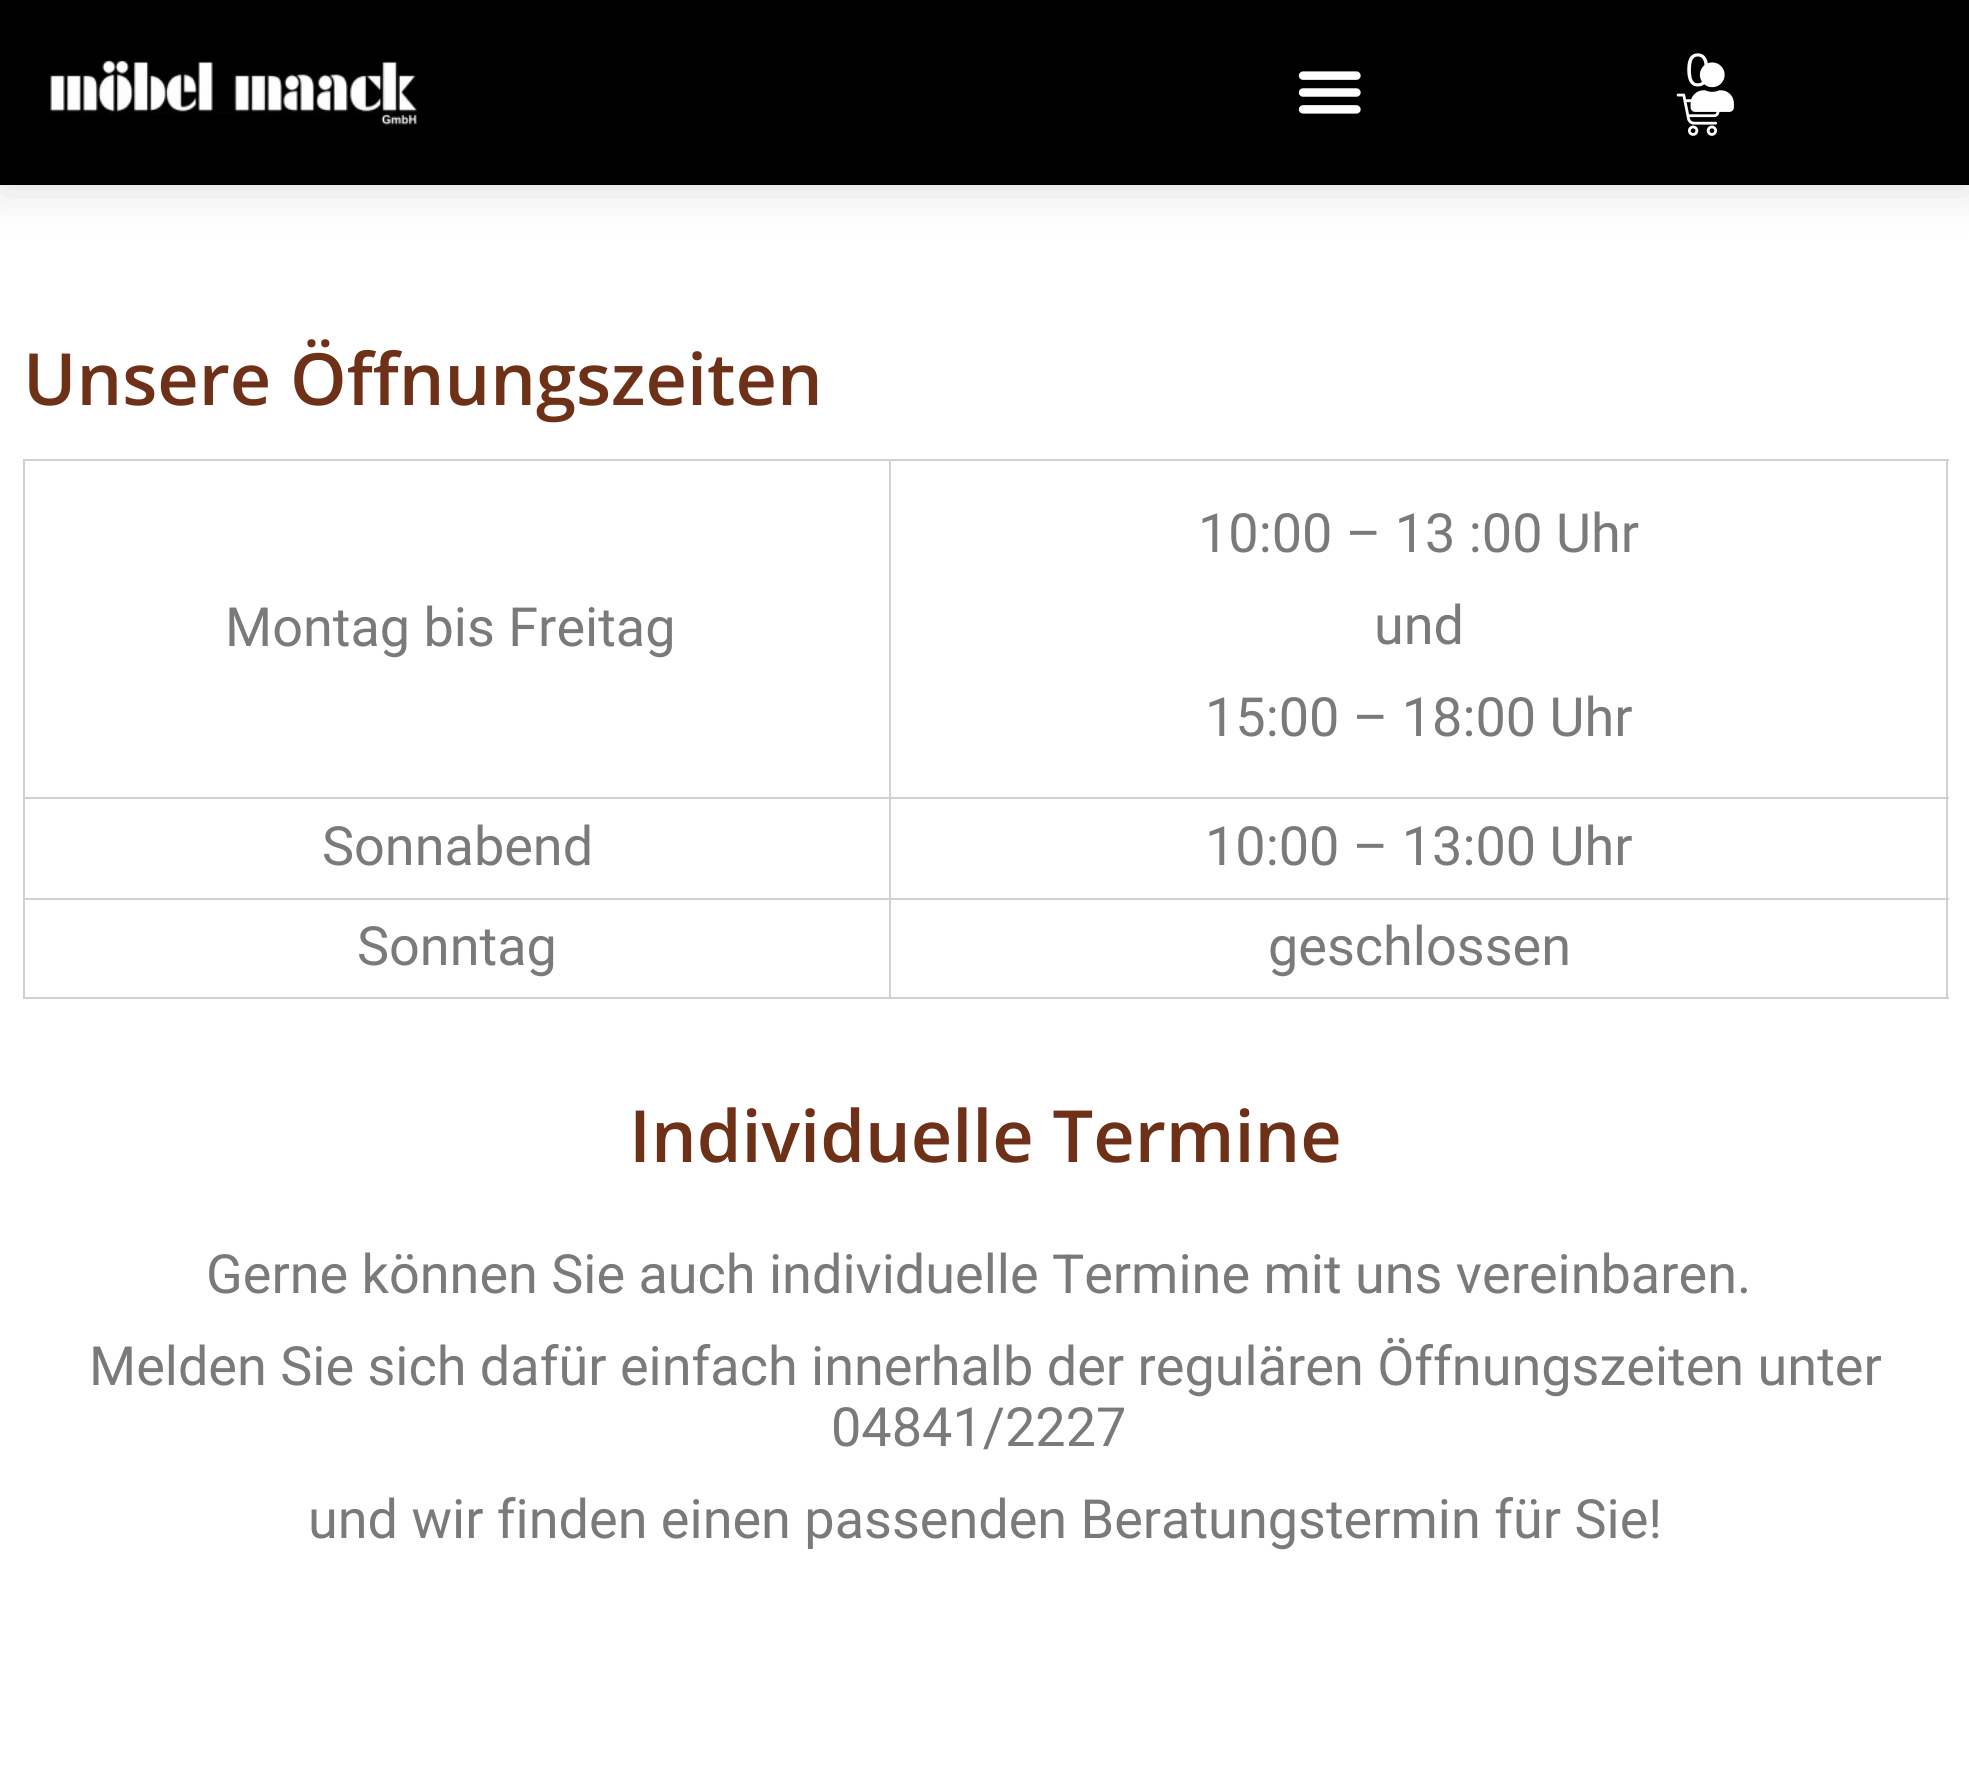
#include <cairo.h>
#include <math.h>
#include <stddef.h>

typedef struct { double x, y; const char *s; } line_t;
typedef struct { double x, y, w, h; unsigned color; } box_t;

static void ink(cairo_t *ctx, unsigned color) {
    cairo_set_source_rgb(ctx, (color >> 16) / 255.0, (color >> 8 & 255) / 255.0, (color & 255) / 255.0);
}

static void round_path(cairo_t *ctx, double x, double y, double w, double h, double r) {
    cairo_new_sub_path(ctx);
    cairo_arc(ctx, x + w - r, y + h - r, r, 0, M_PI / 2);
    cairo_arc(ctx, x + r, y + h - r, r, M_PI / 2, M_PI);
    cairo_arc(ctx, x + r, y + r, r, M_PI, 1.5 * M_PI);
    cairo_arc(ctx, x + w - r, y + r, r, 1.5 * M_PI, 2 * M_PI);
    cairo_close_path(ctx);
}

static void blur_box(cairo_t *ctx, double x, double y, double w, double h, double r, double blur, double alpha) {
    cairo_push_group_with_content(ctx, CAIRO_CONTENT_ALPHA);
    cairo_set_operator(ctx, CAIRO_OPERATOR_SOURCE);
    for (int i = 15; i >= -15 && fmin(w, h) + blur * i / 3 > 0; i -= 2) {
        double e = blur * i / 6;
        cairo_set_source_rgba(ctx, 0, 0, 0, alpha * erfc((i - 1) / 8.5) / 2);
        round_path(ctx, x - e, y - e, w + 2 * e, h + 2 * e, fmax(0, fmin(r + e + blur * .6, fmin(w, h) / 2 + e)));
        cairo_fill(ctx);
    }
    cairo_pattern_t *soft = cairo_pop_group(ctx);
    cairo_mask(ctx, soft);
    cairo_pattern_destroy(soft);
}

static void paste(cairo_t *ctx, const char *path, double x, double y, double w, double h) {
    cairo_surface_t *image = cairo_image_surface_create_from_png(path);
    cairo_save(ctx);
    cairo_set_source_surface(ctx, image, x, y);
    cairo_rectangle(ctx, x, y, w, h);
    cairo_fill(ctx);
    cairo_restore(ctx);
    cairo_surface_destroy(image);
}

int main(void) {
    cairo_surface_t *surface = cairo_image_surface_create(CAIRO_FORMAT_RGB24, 1969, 1783);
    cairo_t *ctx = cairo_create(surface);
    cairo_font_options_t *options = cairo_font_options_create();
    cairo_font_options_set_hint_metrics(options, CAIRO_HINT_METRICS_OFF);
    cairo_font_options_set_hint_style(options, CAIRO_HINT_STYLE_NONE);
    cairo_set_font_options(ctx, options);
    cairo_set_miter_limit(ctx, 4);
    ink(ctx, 0xFFFFFF);
    cairo_paint(ctx);
    ink(ctx, 0x000000);
    blur_box(ctx, 0, 0, 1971, 185, 0, 27, 0.15);
    ink(ctx, 0x000000);
    cairo_rectangle(ctx, 0, 0, 1969, 185);
    cairo_fill(ctx);
    paste(ctx, "media/1.png", 50, 58, 367, 67);
    cairo_select_font_face(ctx, "Open Sans", CAIRO_FONT_SLANT_NORMAL, CAIRO_FONT_WEIGHT_NORMAL);
    cairo_set_font_size(ctx, 45);
    ink(ctx, 0xFFFEFE);
    cairo_move_to(ctx, 1685, 86);
    cairo_show_text(ctx, "0");
    paste(ctx, "media/2.png", 1676, 93, 44, 43);
    paste(ctx, "media/3.png", 1298, 71, 63, 43);
    paste(ctx, "media/4.png", 1690, 62, 44, 50);
    cairo_select_font_face(ctx, "Open Sans SemiBold", CAIRO_FONT_SLANT_NORMAL, CAIRO_FONT_WEIGHT_NORMAL);
    cairo_set_font_size(ctx, 72);
    ink(ctx, 0x6E3017);
    cairo_move_to(ctx, 23, 405);
    cairo_show_text(ctx, "Unsere Öffnungszeiten");
    {
        static const box_t items[] = {
            {23, 459, 1926, 2, 0xD1D1D1},
            {23, 459, 2, 540, 0xD1D1D1},
            {1946, 459, 2, 540, 0xD1D1D1},
            {889, 997, 1060, 2, 0xD1D1D1},
            {889, 898, 2, 101, 0xD1D1D1},
            {889, 898, 1060, 2, 0xD1D1D1},
            {889, 797, 2, 103, 0xD1D1D1},
            {889, 797, 1060, 2, 0xD1D1D1},
            {889, 459, 2, 340, 0xD1D1D1},
            {23, 797, 868, 2, 0xD1D1D1},
        };
        for (size_t i = 0; i < sizeof items / sizeof *items; i++) {
            ink(ctx, items[i].color);
            cairo_rectangle(ctx, items[i].x, items[i].y, items[i].w, items[i].h);
            cairo_fill(ctx);
        }
    }
    cairo_select_font_face(ctx, "Roboto", CAIRO_FONT_SLANT_NORMAL, CAIRO_FONT_WEIGHT_NORMAL);
    cairo_set_font_size(ctx, 54);
    ink(ctx, 0x7A7A7A);
    {
        static const line_t items[] = {
            {225, 646, "Montag bis Freitag"},
            {1198, 552, "10:00 – 13 :00 Uhr"},
            {1374, 644, "und"},
            {1205, 736, "15:00 – 18:00 Uhr"},
        };
        for (size_t i = 0; i < sizeof items / sizeof *items; i++) {
            cairo_move_to(ctx, items[i].x, items[i].y);
            cairo_show_text(ctx, items[i].s);
        }
    }
    ink(ctx, 0xD1D1D1);
    cairo_rectangle(ctx, 23, 898, 868, 2);
    cairo_fill(ctx);
    ink(ctx, 0x7A7A7A);
    cairo_move_to(ctx, 322, 865);
    cairo_show_text(ctx, "Sonnabend");
    cairo_move_to(ctx, 1205, 865);
    cairo_show_text(ctx, "10:00 – 13:00 Uhr");
    ink(ctx, 0xD1D1D1);
    cairo_rectangle(ctx, 23, 997, 868, 2);
    cairo_fill(ctx);
    ink(ctx, 0x7A7A7A);
    cairo_move_to(ctx, 357, 965);
    cairo_show_text(ctx, "Sonntag");
    cairo_move_to(ctx, 1268, 965);
    cairo_show_text(ctx, "geschlossen");
    cairo_select_font_face(ctx, "Open Sans SemiBold", CAIRO_FONT_SLANT_NORMAL, CAIRO_FONT_WEIGHT_NORMAL);
    cairo_set_font_size(ctx, 72);
    ink(ctx, 0x6E3017);
    cairo_move_to(ctx, 629, 1162);
    cairo_show_text(ctx, "Individuelle Termine");
    cairo_select_font_face(ctx, "Roboto", CAIRO_FONT_SLANT_NORMAL, CAIRO_FONT_WEIGHT_NORMAL);
    cairo_set_font_size(ctx, 54);
    ink(ctx, 0x7A7A7A);
    {
        static const line_t items[] = {
            {206, 1293, "Gerne können Sie auch individuelle Termine mit uns vereinbaren."},
            {89, 1385, "Melden Sie sich dafür einfach innerhalb der regulären Öffnungszeiten unter"},
            {831, 1446, "04841/2227"},
            {308, 1538, "und wir finden einen passenden Beratungstermin für Sie!"},
        };
        for (size_t i = 0; i < sizeof items / sizeof *items; i++) {
            cairo_move_to(ctx, items[i].x, items[i].y);
            cairo_show_text(ctx, items[i].s);
        }
    }
    cairo_surface_write_to_png(surface, "image.png");
    cairo_font_options_destroy(options);
    cairo_destroy(ctx);
    cairo_surface_destroy(surface);
    return 0;
}
